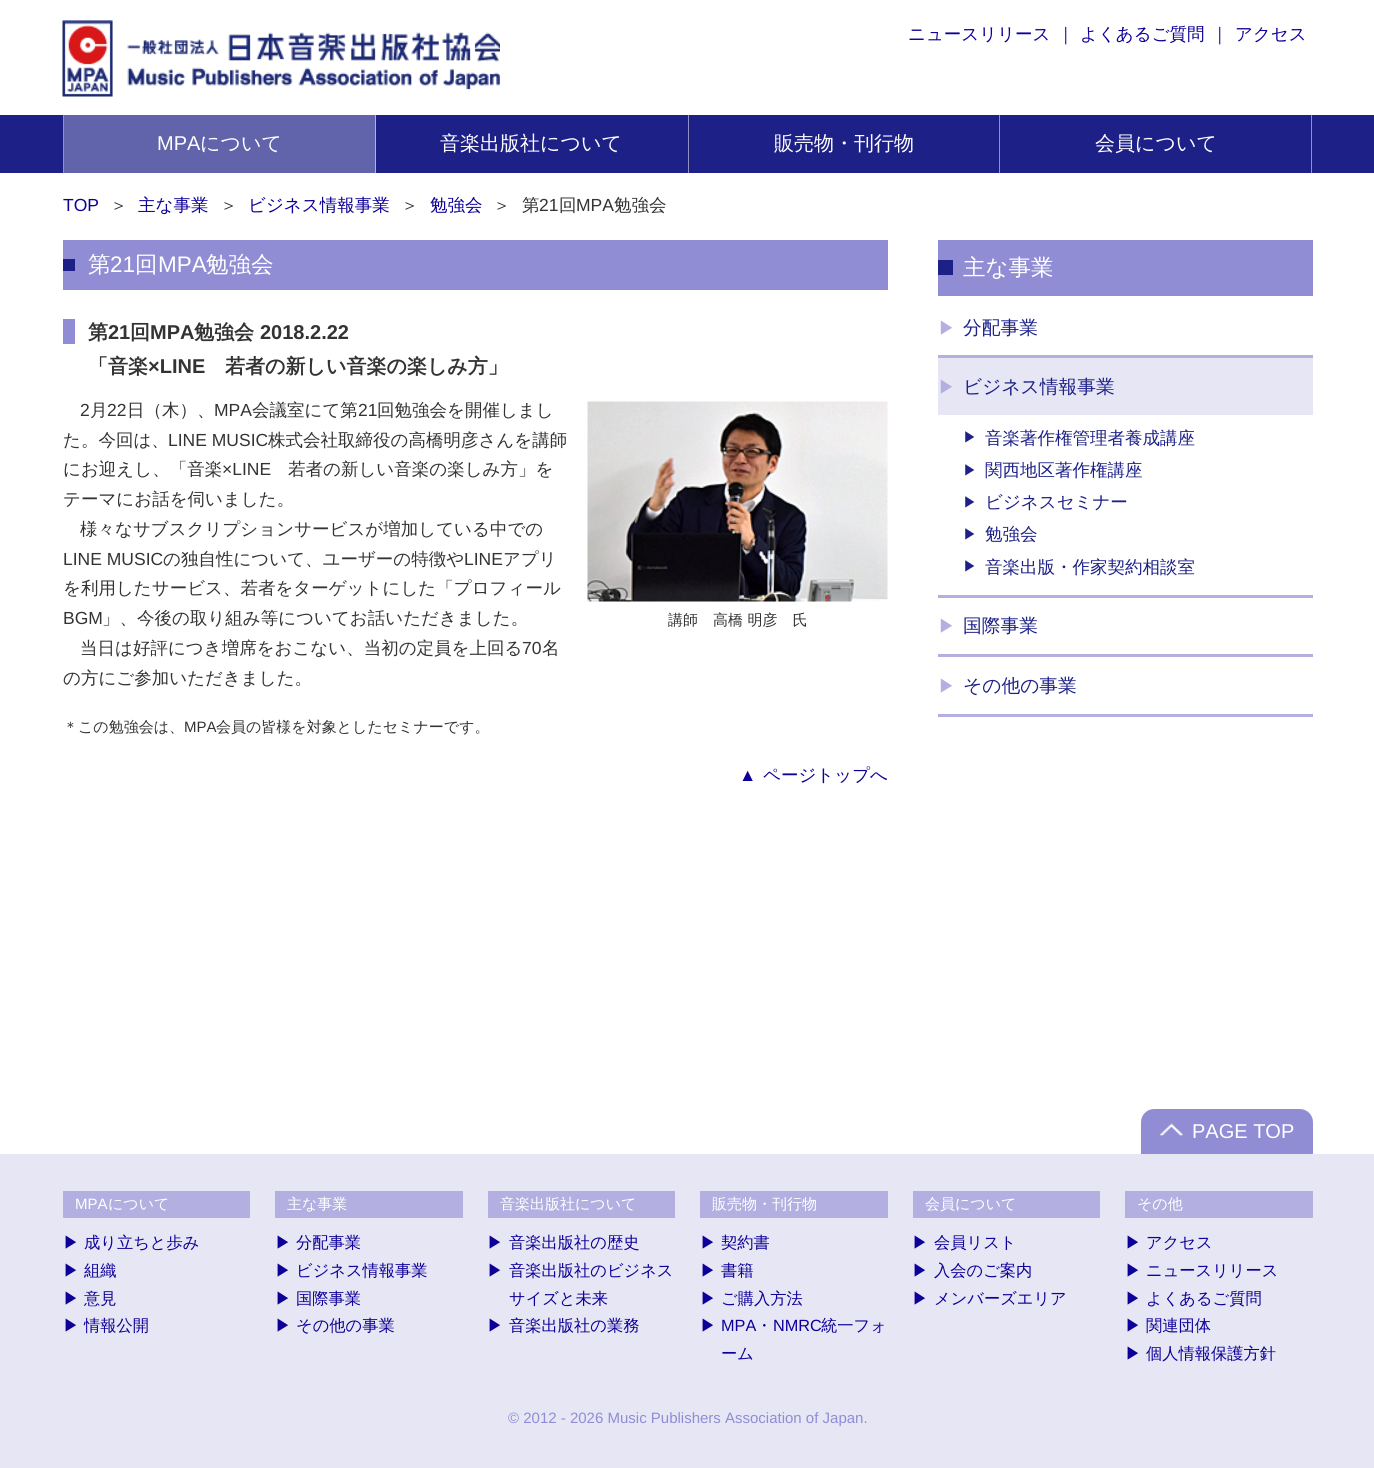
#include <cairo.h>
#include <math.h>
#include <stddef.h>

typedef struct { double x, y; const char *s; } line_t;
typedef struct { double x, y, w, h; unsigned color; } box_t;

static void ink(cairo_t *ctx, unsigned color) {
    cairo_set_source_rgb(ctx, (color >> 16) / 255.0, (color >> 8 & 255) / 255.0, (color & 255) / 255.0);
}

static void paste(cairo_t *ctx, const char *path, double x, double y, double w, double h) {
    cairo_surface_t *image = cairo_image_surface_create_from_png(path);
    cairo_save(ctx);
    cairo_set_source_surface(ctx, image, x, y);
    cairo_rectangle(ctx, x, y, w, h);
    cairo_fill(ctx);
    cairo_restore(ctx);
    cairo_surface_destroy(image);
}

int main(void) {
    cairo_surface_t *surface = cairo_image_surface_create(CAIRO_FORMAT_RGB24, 1374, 1468);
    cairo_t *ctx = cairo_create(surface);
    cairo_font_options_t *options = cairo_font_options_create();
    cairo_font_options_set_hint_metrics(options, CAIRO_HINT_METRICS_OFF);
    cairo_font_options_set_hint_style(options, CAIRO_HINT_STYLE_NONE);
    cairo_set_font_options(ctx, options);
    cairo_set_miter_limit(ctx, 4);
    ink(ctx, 0xFFFFFF);
    cairo_paint(ctx);
    paste(ctx, "media/1.png", 62, 20, 438, 77);
    cairo_select_font_face(ctx, "WenQuanYi Zen Hei Medium", CAIRO_FONT_SLANT_NORMAL, CAIRO_FONT_WEIGHT_NORMAL);
    cairo_set_font_size(ctx, 17.5);
    ink(ctx, 0x0D0098);
    {
        static const line_t items[] = {
            {908, 40, "ニュースリリース"},
            {1057, 40, "｜"},
            {1080, 40, "よくあるご質問"},
            {1211, 40, "｜"},
            {1235, 40, "アクセス"},
        };
        for (size_t i = 0; i < sizeof items / sizeof *items; i++) {
            cairo_move_to(ctx, items[i].x, items[i].y);
            cairo_show_text(ctx, items[i].s);
        }
    }
    {
        static const box_t items[] = {
            {0, 115, 1374, 58, 0x1D2087},
            {63, 115, 1, 58, 0x8E90C3},
            {64, 115, 311, 58, 0x6163AB},
            {375, 115, 1, 58, 0xB0B1D5},
        };
        for (size_t i = 0; i < sizeof items / sizeof *items; i++) {
            ink(ctx, items[i].color);
            cairo_rectangle(ctx, items[i].x, items[i].y, items[i].w, items[i].h);
            cairo_fill(ctx);
        }
    }
    cairo_select_font_face(ctx, "Liberation Sans", CAIRO_FONT_SLANT_NORMAL, CAIRO_FONT_WEIGHT_NORMAL);
    cairo_set_font_size(ctx, 20);
    ink(ctx, 0xFFFFFF);
    cairo_move_to(ctx, 157, 150);
    cairo_show_text(ctx, "MPA");
    cairo_select_font_face(ctx, "WenQuanYi Zen Hei Medium", CAIRO_FONT_SLANT_NORMAL, CAIRO_FONT_WEIGHT_NORMAL);
    cairo_move_to(ctx, 200, 150);
    cairo_show_text(ctx, "について");
    ink(ctx, 0x8E90C3);
    cairo_rectangle(ctx, 688, 115, 1, 58);
    cairo_fill(ctx);
    ink(ctx, 0xFFFFFF);
    cairo_move_to(ctx, 440, 150);
    cairo_show_text(ctx, "音楽出版社について");
    ink(ctx, 0x8E90C3);
    cairo_rectangle(ctx, 999, 115, 1, 58);
    cairo_fill(ctx);
    ink(ctx, 0xFFFFFF);
    cairo_move_to(ctx, 774, 150);
    cairo_show_text(ctx, "販売物・刊行物");
    ink(ctx, 0x8E90C3);
    cairo_rectangle(ctx, 1311, 115, 1, 58);
    cairo_fill(ctx);
    ink(ctx, 0xFFFFFF);
    cairo_move_to(ctx, 1095, 150);
    cairo_show_text(ctx, "会員について");
    cairo_select_font_face(ctx, "Liberation Sans", CAIRO_FONT_SLANT_NORMAL, CAIRO_FONT_WEIGHT_NORMAL);
    cairo_set_font_size(ctx, 17.5);
    ink(ctx, 0x0D0098);
    cairo_move_to(ctx, 63, 211);
    cairo_show_text(ctx, "TOP");
    cairo_select_font_face(ctx, "WenQuanYi Zen Hei Medium", CAIRO_FONT_SLANT_NORMAL, CAIRO_FONT_WEIGHT_NORMAL);
    ink(ctx, 0x333333);
    cairo_move_to(ctx, 110, 211);
    cairo_show_text(ctx, "＞");
    ink(ctx, 0x0D0098);
    cairo_move_to(ctx, 138, 211);
    cairo_show_text(ctx, "主な事業");
    ink(ctx, 0x333333);
    cairo_move_to(ctx, 220, 211);
    cairo_show_text(ctx, "＞");
    ink(ctx, 0x0D0098);
    cairo_move_to(ctx, 248, 211);
    cairo_show_text(ctx, "ビジネス情報事業");
    ink(ctx, 0x333333);
    cairo_move_to(ctx, 401, 211);
    cairo_show_text(ctx, "＞");
    ink(ctx, 0x0D0098);
    cairo_move_to(ctx, 430, 211);
    cairo_show_text(ctx, "勉強会");
    ink(ctx, 0x333333);
    cairo_move_to(ctx, 493, 211);
    cairo_show_text(ctx, "＞");
    cairo_move_to(ctx, 522, 211);
    cairo_show_text(ctx, "第");
    cairo_select_font_face(ctx, "Liberation Sans", CAIRO_FONT_SLANT_NORMAL, CAIRO_FONT_WEIGHT_NORMAL);
    cairo_move_to(ctx, 539, 211);
    cairo_show_text(ctx, "21");
    cairo_select_font_face(ctx, "WenQuanYi Zen Hei Medium", CAIRO_FONT_SLANT_NORMAL, CAIRO_FONT_WEIGHT_NORMAL);
    cairo_move_to(ctx, 559, 211);
    cairo_show_text(ctx, "回");
    cairo_select_font_face(ctx, "Liberation Sans", CAIRO_FONT_SLANT_NORMAL, CAIRO_FONT_WEIGHT_NORMAL);
    cairo_move_to(ctx, 576, 211);
    cairo_show_text(ctx, "MPA");
    cairo_select_font_face(ctx, "WenQuanYi Zen Hei Medium", CAIRO_FONT_SLANT_NORMAL, CAIRO_FONT_WEIGHT_NORMAL);
    cairo_move_to(ctx, 614, 211);
    cairo_show_text(ctx, "勉強会");
    ink(ctx, 0x908DD4);
    cairo_rectangle(ctx, 63, 240, 825, 50);
    cairo_fill(ctx);
    ink(ctx, 0x1D2087);
    cairo_rectangle(ctx, 63, 259, 12, 12);
    cairo_fill(ctx);
    cairo_set_font_size(ctx, 22.5);
    ink(ctx, 0xFFFFFF);
    cairo_move_to(ctx, 88, 272);
    cairo_show_text(ctx, "第");
    cairo_select_font_face(ctx, "Liberation Sans", CAIRO_FONT_SLANT_NORMAL, CAIRO_FONT_WEIGHT_NORMAL);
    cairo_move_to(ctx, 110, 272);
    cairo_show_text(ctx, "21");
    cairo_select_font_face(ctx, "WenQuanYi Zen Hei Medium", CAIRO_FONT_SLANT_NORMAL, CAIRO_FONT_WEIGHT_NORMAL);
    cairo_move_to(ctx, 135, 272);
    cairo_show_text(ctx, "回");
    cairo_select_font_face(ctx, "Liberation Sans", CAIRO_FONT_SLANT_NORMAL, CAIRO_FONT_WEIGHT_NORMAL);
    cairo_move_to(ctx, 158, 272);
    cairo_show_text(ctx, "MPA");
    cairo_select_font_face(ctx, "WenQuanYi Zen Hei Medium", CAIRO_FONT_SLANT_NORMAL, CAIRO_FONT_WEIGHT_NORMAL);
    cairo_move_to(ctx, 206, 272);
    cairo_show_text(ctx, "勉強会");
    ink(ctx, 0x908DD4);
    cairo_rectangle(ctx, 63, 319, 12, 25);
    cairo_fill(ctx);
    cairo_select_font_face(ctx, "WenQuanYi Zen Hei", CAIRO_FONT_SLANT_NORMAL, CAIRO_FONT_WEIGHT_BOLD);
    cairo_set_font_size(ctx, 20);
    ink(ctx, 0x333333);
    cairo_move_to(ctx, 88, 339);
    cairo_show_text(ctx, "第");
    cairo_select_font_face(ctx, "Liberation Sans", CAIRO_FONT_SLANT_NORMAL, CAIRO_FONT_WEIGHT_BOLD);
    cairo_move_to(ctx, 108, 339);
    cairo_show_text(ctx, "21");
    cairo_select_font_face(ctx, "WenQuanYi Zen Hei", CAIRO_FONT_SLANT_NORMAL, CAIRO_FONT_WEIGHT_BOLD);
    cairo_move_to(ctx, 130, 339);
    cairo_show_text(ctx, "回");
    cairo_select_font_face(ctx, "Liberation Sans", CAIRO_FONT_SLANT_NORMAL, CAIRO_FONT_WEIGHT_BOLD);
    cairo_move_to(ctx, 150, 339);
    cairo_show_text(ctx, "MPA");
    cairo_select_font_face(ctx, "WenQuanYi Zen Hei", CAIRO_FONT_SLANT_NORMAL, CAIRO_FONT_WEIGHT_BOLD);
    cairo_move_to(ctx, 194, 339);
    cairo_show_text(ctx, "勉強会");
    cairo_select_font_face(ctx, "Liberation Sans", CAIRO_FONT_SLANT_NORMAL, CAIRO_FONT_WEIGHT_BOLD);
    cairo_move_to(ctx, 260, 339);
    cairo_show_text(ctx, "2018.2.22");
    cairo_select_font_face(ctx, "WenQuanYi Zen Hei", CAIRO_FONT_SLANT_NORMAL, CAIRO_FONT_WEIGHT_BOLD);
    cairo_move_to(ctx, 88, 373);
    cairo_show_text(ctx, "「音楽");
    cairo_select_font_face(ctx, "Liberation Sans", CAIRO_FONT_SLANT_NORMAL, CAIRO_FONT_WEIGHT_BOLD);
    cairo_move_to(ctx, 148, 373);
    cairo_show_text(ctx, "×LINE");
    cairo_select_font_face(ctx, "WenQuanYi Zen Hei", CAIRO_FONT_SLANT_NORMAL, CAIRO_FONT_WEIGHT_BOLD);
    cairo_move_to(ctx, 225, 373);
    cairo_show_text(ctx, "若者の新しい音楽の楽しみ方」");
    cairo_select_font_face(ctx, "Liberation Sans", CAIRO_FONT_SLANT_NORMAL, CAIRO_FONT_WEIGHT_NORMAL);
    cairo_set_font_size(ctx, 17.5);
    cairo_move_to(ctx, 80, 416);
    cairo_show_text(ctx, "2");
    cairo_select_font_face(ctx, "WenQuanYi Zen Hei Medium", CAIRO_FONT_SLANT_NORMAL, CAIRO_FONT_WEIGHT_NORMAL);
    cairo_move_to(ctx, 90, 416);
    cairo_show_text(ctx, "月");
    cairo_select_font_face(ctx, "Liberation Sans", CAIRO_FONT_SLANT_NORMAL, CAIRO_FONT_WEIGHT_NORMAL);
    cairo_move_to(ctx, 107, 416);
    cairo_show_text(ctx, "22");
    cairo_select_font_face(ctx, "WenQuanYi Zen Hei Medium", CAIRO_FONT_SLANT_NORMAL, CAIRO_FONT_WEIGHT_NORMAL);
    cairo_move_to(ctx, 127, 416);
    cairo_show_text(ctx, "日（木）、");
    cairo_select_font_face(ctx, "Liberation Sans", CAIRO_FONT_SLANT_NORMAL, CAIRO_FONT_WEIGHT_NORMAL);
    cairo_move_to(ctx, 214, 416);
    cairo_show_text(ctx, "MPA");
    cairo_select_font_face(ctx, "WenQuanYi Zen Hei Medium", CAIRO_FONT_SLANT_NORMAL, CAIRO_FONT_WEIGHT_NORMAL);
    cairo_move_to(ctx, 252, 416);
    cairo_show_text(ctx, "会議室にて第");
    cairo_select_font_face(ctx, "Liberation Sans", CAIRO_FONT_SLANT_NORMAL, CAIRO_FONT_WEIGHT_NORMAL);
    cairo_move_to(ctx, 358, 416);
    cairo_show_text(ctx, "21");
    cairo_select_font_face(ctx, "WenQuanYi Zen Hei Medium", CAIRO_FONT_SLANT_NORMAL, CAIRO_FONT_WEIGHT_NORMAL);
    cairo_move_to(ctx, 377, 416);
    cairo_show_text(ctx, "回勉強会を開催しまし");
    cairo_move_to(ctx, 63, 446);
    cairo_show_text(ctx, "た。今回は、");
    cairo_select_font_face(ctx, "Liberation Sans", CAIRO_FONT_SLANT_NORMAL, CAIRO_FONT_WEIGHT_NORMAL);
    cairo_move_to(ctx, 168, 446);
    cairo_show_text(ctx, "LINE MUSIC");
    cairo_select_font_face(ctx, "WenQuanYi Zen Hei Medium", CAIRO_FONT_SLANT_NORMAL, CAIRO_FONT_WEIGHT_NORMAL);
    cairo_move_to(ctx, 268, 446);
    cairo_show_text(ctx, "株式会社取締役の高橋明彦さんを講師");
    cairo_move_to(ctx, 63, 475);
    cairo_show_text(ctx, "にお迎えし、「音楽");
    cairo_select_font_face(ctx, "Liberation Sans", CAIRO_FONT_SLANT_NORMAL, CAIRO_FONT_WEIGHT_NORMAL);
    cairo_move_to(ctx, 222, 475);
    cairo_show_text(ctx, "×LINE");
    cairo_select_font_face(ctx, "WenQuanYi Zen Hei Medium", CAIRO_FONT_SLANT_NORMAL, CAIRO_FONT_WEIGHT_NORMAL);
    {
        static const line_t items[] = {
            {288, 475, "若者の新しい音楽の楽しみ方」を"},
            {63, 505, "テーマにお話を伺いました。"},
            {80, 535, "様々なサブスクリプションサービスが増加している中での"},
        };
        for (size_t i = 0; i < sizeof items / sizeof *items; i++) {
            cairo_move_to(ctx, items[i].x, items[i].y);
            cairo_show_text(ctx, items[i].s);
        }
    }
    cairo_select_font_face(ctx, "Liberation Sans", CAIRO_FONT_SLANT_NORMAL, CAIRO_FONT_WEIGHT_NORMAL);
    cairo_move_to(ctx, 63, 565);
    cairo_show_text(ctx, "LINE MUSIC");
    cairo_select_font_face(ctx, "WenQuanYi Zen Hei Medium", CAIRO_FONT_SLANT_NORMAL, CAIRO_FONT_WEIGHT_NORMAL);
    cairo_move_to(ctx, 163, 565);
    cairo_show_text(ctx, "の独自性について、ユーザーの特徴や");
    cairo_select_font_face(ctx, "Liberation Sans", CAIRO_FONT_SLANT_NORMAL, CAIRO_FONT_WEIGHT_NORMAL);
    cairo_move_to(ctx, 464, 565);
    cairo_show_text(ctx, "LINE");
    cairo_select_font_face(ctx, "WenQuanYi Zen Hei Medium", CAIRO_FONT_SLANT_NORMAL, CAIRO_FONT_WEIGHT_NORMAL);
    cairo_move_to(ctx, 503, 565);
    cairo_show_text(ctx, "アプリ");
    cairo_move_to(ctx, 63, 594);
    cairo_show_text(ctx, "を利用したサービス、若者をターゲットにした「プロフィール");
    cairo_select_font_face(ctx, "Liberation Sans", CAIRO_FONT_SLANT_NORMAL, CAIRO_FONT_WEIGHT_NORMAL);
    cairo_move_to(ctx, 63, 624);
    cairo_show_text(ctx, "BGM");
    cairo_select_font_face(ctx, "WenQuanYi Zen Hei Medium", CAIRO_FONT_SLANT_NORMAL, CAIRO_FONT_WEIGHT_NORMAL);
    cairo_move_to(ctx, 102, 624);
    cairo_show_text(ctx, "」、今後の取り組み等についてお話いただきました。");
    cairo_move_to(ctx, 80, 654);
    cairo_show_text(ctx, "当日は好評につき増席をおこない、当初の定員を上回る");
    cairo_select_font_face(ctx, "Liberation Sans", CAIRO_FONT_SLANT_NORMAL, CAIRO_FONT_WEIGHT_NORMAL);
    cairo_move_to(ctx, 522, 654);
    cairo_show_text(ctx, "70");
    cairo_select_font_face(ctx, "WenQuanYi Zen Hei Medium", CAIRO_FONT_SLANT_NORMAL, CAIRO_FONT_WEIGHT_NORMAL);
    cairo_move_to(ctx, 542, 654);
    cairo_show_text(ctx, "名");
    cairo_move_to(ctx, 63, 684);
    cairo_show_text(ctx, "の方にご参加いただきました。");
    paste(ctx, "media/2.png", 587, 401, 301, 201);
    cairo_set_font_size(ctx, 15);
    cairo_move_to(ctx, 668, 625);
    cairo_show_text(ctx, "講師　高橋 明彦　氏");
    cairo_move_to(ctx, 63, 732);
    cairo_show_text(ctx, "＊この勉強会は、");
    cairo_select_font_face(ctx, "Liberation Sans", CAIRO_FONT_SLANT_NORMAL, CAIRO_FONT_WEIGHT_NORMAL);
    cairo_move_to(ctx, 184, 732);
    cairo_show_text(ctx, "MPA");
    cairo_select_font_face(ctx, "WenQuanYi Zen Hei Medium", CAIRO_FONT_SLANT_NORMAL, CAIRO_FONT_WEIGHT_NORMAL);
    cairo_move_to(ctx, 216, 732);
    cairo_show_text(ctx, "会員の皆様を対象としたセミナーです。");
    cairo_select_font_face(ctx, "Liberation Sans", CAIRO_FONT_SLANT_NORMAL, CAIRO_FONT_WEIGHT_NORMAL);
    cairo_set_font_size(ctx, 17.5);
    ink(ctx, 0x0D0098);
    cairo_move_to(ctx, 739, 781);
    cairo_show_text(ctx, "▲");
    cairo_select_font_face(ctx, "WenQuanYi Zen Hei Medium", CAIRO_FONT_SLANT_NORMAL, CAIRO_FONT_WEIGHT_NORMAL);
    cairo_move_to(ctx, 763, 781);
    cairo_show_text(ctx, "ページトップへ");
    ink(ctx, 0x908DD4);
    cairo_rectangle(ctx, 938, 240, 375, 56);
    cairo_fill(ctx);
    ink(ctx, 0x1D2087);
    cairo_rectangle(ctx, 938, 260, 15, 15);
    cairo_fill(ctx);
    cairo_set_font_size(ctx, 22.5);
    ink(ctx, 0xFFFFFF);
    cairo_move_to(ctx, 963, 275);
    cairo_show_text(ctx, "主な事業");
    ink(ctx, 0xB3B0E1);
    cairo_rectangle(ctx, 938, 355, 375, 3);
    cairo_fill(ctx);
    cairo_set_font_size(ctx, 17.5);
    cairo_move_to(ctx, 938, 334);
    cairo_show_text(ctx, "▶");
    cairo_set_font_size(ctx, 18.75);
    ink(ctx, 0x1D2087);
    cairo_move_to(ctx, 963, 334);
    cairo_show_text(ctx, "分配事業");
    ink(ctx, 0xB3B0E1);
    cairo_rectangle(ctx, 938, 595, 375, 3);
    cairo_fill(ctx);
    ink(ctx, 0xE7E6F5);
    cairo_rectangle(ctx, 938, 358, 375, 57);
    cairo_fill(ctx);
    cairo_set_font_size(ctx, 17.5);
    ink(ctx, 0xB3B0E1);
    cairo_move_to(ctx, 938, 393);
    cairo_show_text(ctx, "▶");
    cairo_set_font_size(ctx, 18.75);
    ink(ctx, 0x1D2087);
    cairo_move_to(ctx, 963, 393);
    cairo_show_text(ctx, "ビジネス情報事業");
    cairo_set_font_size(ctx, 14);
    cairo_move_to(ctx, 963, 442);
    cairo_show_text(ctx, "▶");
    cairo_set_font_size(ctx, 17.5);
    cairo_move_to(ctx, 985, 444);
    cairo_show_text(ctx, "音楽著作権管理者養成講座");
    cairo_set_font_size(ctx, 14);
    cairo_move_to(ctx, 963, 475);
    cairo_show_text(ctx, "▶");
    cairo_set_font_size(ctx, 17.5);
    cairo_move_to(ctx, 985, 476);
    cairo_show_text(ctx, "関西地区著作権講座");
    cairo_set_font_size(ctx, 14);
    cairo_move_to(ctx, 963, 507);
    cairo_show_text(ctx, "▶");
    cairo_set_font_size(ctx, 17.5);
    cairo_move_to(ctx, 985, 508);
    cairo_show_text(ctx, "ビジネスセミナー");
    cairo_set_font_size(ctx, 14);
    cairo_move_to(ctx, 963, 539);
    cairo_show_text(ctx, "▶");
    cairo_set_font_size(ctx, 17.5);
    cairo_move_to(ctx, 985, 540);
    cairo_show_text(ctx, "勉強会");
    cairo_set_font_size(ctx, 14);
    cairo_move_to(ctx, 963, 571);
    cairo_show_text(ctx, "▶");
    cairo_set_font_size(ctx, 17.5);
    cairo_move_to(ctx, 985, 573);
    cairo_show_text(ctx, "音楽出版・作家契約相談室");
    ink(ctx, 0xB3B0E1);
    cairo_rectangle(ctx, 938, 654, 375, 3);
    cairo_fill(ctx);
    cairo_move_to(ctx, 938, 632);
    cairo_show_text(ctx, "▶");
    cairo_set_font_size(ctx, 18.75);
    ink(ctx, 0x1D2087);
    cairo_move_to(ctx, 963, 632);
    cairo_show_text(ctx, "国際事業");
    ink(ctx, 0xB3B0E1);
    cairo_rectangle(ctx, 938, 714, 375, 3);
    cairo_fill(ctx);
    cairo_set_font_size(ctx, 17.5);
    cairo_move_to(ctx, 938, 692);
    cairo_show_text(ctx, "▶");
    cairo_set_font_size(ctx, 18.75);
    ink(ctx, 0x1D2087);
    cairo_move_to(ctx, 963, 692);
    cairo_show_text(ctx, "その他の事業");
    ink(ctx, 0x908DD4);
    cairo_new_path(ctx);
    cairo_move_to(ctx, 1154, 1109);
    cairo_line_to(ctx, 1300, 1109);
    cairo_curve_to(ctx, 1307, 1109, 1313, 1115, 1313, 1122);
    cairo_line_to(ctx, 1313, 1154);
    cairo_line_to(ctx, 1141, 1154);
    cairo_line_to(ctx, 1141, 1122);
    cairo_curve_to(ctx, 1141, 1115, 1147, 1109, 1154, 1109);
    cairo_close_path(ctx);
    cairo_fill(ctx);
    paste(ctx, "media/3.png", 1160, 1123, 23, 13);
    cairo_select_font_face(ctx, "Liberation Sans", CAIRO_FONT_SLANT_NORMAL, CAIRO_FONT_WEIGHT_NORMAL);
    cairo_set_font_size(ctx, 20);
    ink(ctx, 0xFFFFFF);
    cairo_move_to(ctx, 1192, 1138);
    cairo_show_text(ctx, "PAGE TOP");
    ink(ctx, 0xE7E6F5);
    cairo_rectangle(ctx, 0, 1154, 1374, 314);
    cairo_fill(ctx);
    ink(ctx, 0xB3B0E1);
    cairo_rectangle(ctx, 63, 1191, 187, 27);
    cairo_fill(ctx);
    cairo_set_font_size(ctx, 15);
    ink(ctx, 0xFFFFFF);
    cairo_move_to(ctx, 75, 1209);
    cairo_show_text(ctx, "MPA");
    cairo_select_font_face(ctx, "WenQuanYi Zen Hei Medium", CAIRO_FONT_SLANT_NORMAL, CAIRO_FONT_WEIGHT_NORMAL);
    cairo_move_to(ctx, 108, 1209);
    cairo_show_text(ctx, "について");
    cairo_set_font_size(ctx, 16.25);
    ink(ctx, 0x0D0098);
    {
        static const line_t items[] = {
            {63, 1248, "▶"},
            {84, 1248, "成り立ちと歩み"},
            {63, 1276, "▶"},
            {84, 1276, "組織"},
            {63, 1304, "▶"},
            {84, 1304, "意見"},
            {63, 1331, "▶"},
            {84, 1331, "情報公開"},
        };
        for (size_t i = 0; i < sizeof items / sizeof *items; i++) {
            cairo_move_to(ctx, items[i].x, items[i].y);
            cairo_show_text(ctx, items[i].s);
        }
    }
    ink(ctx, 0xB3B0E1);
    cairo_rectangle(ctx, 275, 1191, 188, 27);
    cairo_fill(ctx);
    cairo_set_font_size(ctx, 15);
    ink(ctx, 0xFFFFFF);
    cairo_move_to(ctx, 287, 1209);
    cairo_show_text(ctx, "主な事業");
    cairo_set_font_size(ctx, 16.25);
    ink(ctx, 0x0D0098);
    {
        static const line_t items[] = {
            {275, 1248, "▶"},
            {296, 1248, "分配事業"},
            {275, 1276, "▶"},
            {296, 1276, "ビジネス情報事業"},
            {275, 1304, "▶"},
            {296, 1304, "国際事業"},
            {275, 1331, "▶"},
            {296, 1331, "その他の事業"},
        };
        for (size_t i = 0; i < sizeof items / sizeof *items; i++) {
            cairo_move_to(ctx, items[i].x, items[i].y);
            cairo_show_text(ctx, items[i].s);
        }
    }
    ink(ctx, 0xB3B0E1);
    cairo_rectangle(ctx, 488, 1191, 187, 27);
    cairo_fill(ctx);
    cairo_set_font_size(ctx, 15);
    ink(ctx, 0xFFFFFF);
    cairo_move_to(ctx, 500, 1209);
    cairo_show_text(ctx, "音楽出版社について");
    cairo_set_font_size(ctx, 16.25);
    ink(ctx, 0x0D0098);
    {
        static const line_t items[] = {
            {487, 1248, "▶"},
            {509, 1248, "音楽出版社の歴史"},
            {487, 1276, "▶"},
            {509, 1276, "音楽出版社のビジネス"},
            {509, 1304, "サイズと未来"},
            {487, 1331, "▶"},
            {509, 1331, "音楽出版社の業務"},
        };
        for (size_t i = 0; i < sizeof items / sizeof *items; i++) {
            cairo_move_to(ctx, items[i].x, items[i].y);
            cairo_show_text(ctx, items[i].s);
        }
    }
    ink(ctx, 0xB3B0E1);
    cairo_rectangle(ctx, 700, 1191, 188, 27);
    cairo_fill(ctx);
    cairo_set_font_size(ctx, 15);
    ink(ctx, 0xFFFFFF);
    cairo_move_to(ctx, 712, 1209);
    cairo_show_text(ctx, "販売物・刊行物");
    cairo_set_font_size(ctx, 16.25);
    ink(ctx, 0x0D0098);
    {
        static const line_t items[] = {
            {700, 1248, "▶"},
            {721, 1248, "契約書"},
            {700, 1276, "▶"},
            {721, 1276, "書籍"},
            {700, 1304, "▶"},
            {721, 1304, "ご購入方法"},
            {700, 1331, "▶"},
        };
        for (size_t i = 0; i < sizeof items / sizeof *items; i++) {
            cairo_move_to(ctx, items[i].x, items[i].y);
            cairo_show_text(ctx, items[i].s);
        }
    }
    cairo_select_font_face(ctx, "Liberation Sans", CAIRO_FONT_SLANT_NORMAL, CAIRO_FONT_WEIGHT_NORMAL);
    cairo_move_to(ctx, 721, 1331);
    cairo_show_text(ctx, "MPA");
    cairo_select_font_face(ctx, "WenQuanYi Zen Hei Medium", CAIRO_FONT_SLANT_NORMAL, CAIRO_FONT_WEIGHT_NORMAL);
    cairo_move_to(ctx, 756, 1331);
    cairo_show_text(ctx, "・");
    cairo_select_font_face(ctx, "Liberation Sans", CAIRO_FONT_SLANT_NORMAL, CAIRO_FONT_WEIGHT_NORMAL);
    cairo_move_to(ctx, 773, 1331);
    cairo_show_text(ctx, "NMRC");
    cairo_select_font_face(ctx, "WenQuanYi Zen Hei Medium", CAIRO_FONT_SLANT_NORMAL, CAIRO_FONT_WEIGHT_NORMAL);
    cairo_move_to(ctx, 821, 1331);
    cairo_show_text(ctx, "統一フォ");
    cairo_move_to(ctx, 721, 1359);
    cairo_show_text(ctx, "ーム");
    ink(ctx, 0xB3B0E1);
    cairo_rectangle(ctx, 913, 1191, 187, 27);
    cairo_fill(ctx);
    cairo_set_font_size(ctx, 15);
    ink(ctx, 0xFFFFFF);
    cairo_move_to(ctx, 925, 1209);
    cairo_show_text(ctx, "会員について");
    cairo_set_font_size(ctx, 16.25);
    ink(ctx, 0x0D0098);
    {
        static const line_t items[] = {
            {912, 1248, "▶"},
            {934, 1248, "会員リスト"},
            {912, 1276, "▶"},
            {934, 1276, "入会のご案内"},
            {912, 1304, "▶"},
            {934, 1304, "メンバーズエリア"},
        };
        for (size_t i = 0; i < sizeof items / sizeof *items; i++) {
            cairo_move_to(ctx, items[i].x, items[i].y);
            cairo_show_text(ctx, items[i].s);
        }
    }
    ink(ctx, 0xB3B0E1);
    cairo_rectangle(ctx, 1125, 1191, 188, 27);
    cairo_fill(ctx);
    cairo_set_font_size(ctx, 15);
    ink(ctx, 0xFFFFFF);
    cairo_move_to(ctx, 1137, 1209);
    cairo_show_text(ctx, "その他");
    cairo_set_font_size(ctx, 16.25);
    ink(ctx, 0x0D0098);
    {
        static const line_t items[] = {
            {1125, 1248, "▶"},
            {1146, 1248, "アクセス"},
            {1125, 1276, "▶"},
            {1146, 1276, "ニュースリリース"},
            {1125, 1304, "▶"},
            {1146, 1304, "よくあるご質問"},
            {1125, 1331, "▶"},
            {1146, 1331, "関連団体"},
            {1125, 1359, "▶"},
            {1146, 1359, "個人情報保護方針"},
        };
        for (size_t i = 0; i < sizeof items / sizeof *items; i++) {
            cairo_move_to(ctx, items[i].x, items[i].y);
            cairo_show_text(ctx, items[i].s);
        }
    }
    cairo_select_font_face(ctx, "Liberation Sans", CAIRO_FONT_SLANT_NORMAL, CAIRO_FONT_WEIGHT_NORMAL);
    cairo_set_font_size(ctx, 15);
    ink(ctx, 0x908DD4);
    cairo_move_to(ctx, 508, 1423);
    cairo_show_text(ctx, "© 2012 - 2026 Music Publishers Association of Japan.");
    cairo_surface_write_to_png(surface, "image.png");
    cairo_font_options_destroy(options);
    cairo_destroy(ctx);
    cairo_surface_destroy(surface);
    return 0;
}
